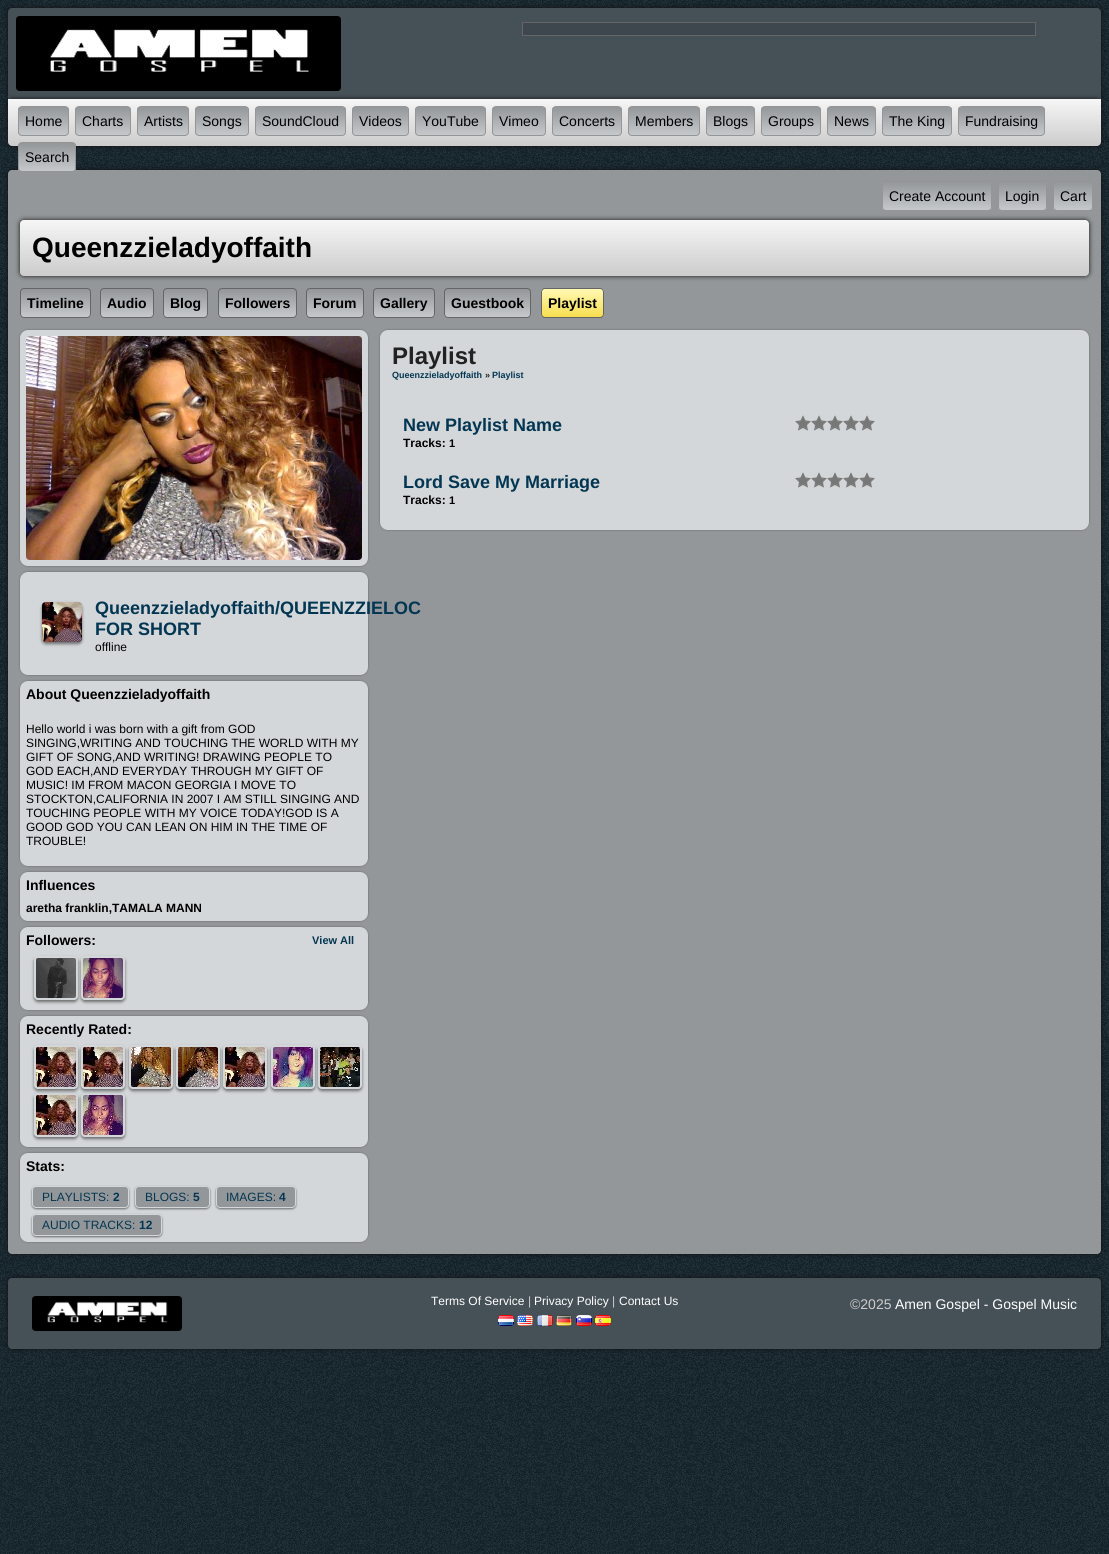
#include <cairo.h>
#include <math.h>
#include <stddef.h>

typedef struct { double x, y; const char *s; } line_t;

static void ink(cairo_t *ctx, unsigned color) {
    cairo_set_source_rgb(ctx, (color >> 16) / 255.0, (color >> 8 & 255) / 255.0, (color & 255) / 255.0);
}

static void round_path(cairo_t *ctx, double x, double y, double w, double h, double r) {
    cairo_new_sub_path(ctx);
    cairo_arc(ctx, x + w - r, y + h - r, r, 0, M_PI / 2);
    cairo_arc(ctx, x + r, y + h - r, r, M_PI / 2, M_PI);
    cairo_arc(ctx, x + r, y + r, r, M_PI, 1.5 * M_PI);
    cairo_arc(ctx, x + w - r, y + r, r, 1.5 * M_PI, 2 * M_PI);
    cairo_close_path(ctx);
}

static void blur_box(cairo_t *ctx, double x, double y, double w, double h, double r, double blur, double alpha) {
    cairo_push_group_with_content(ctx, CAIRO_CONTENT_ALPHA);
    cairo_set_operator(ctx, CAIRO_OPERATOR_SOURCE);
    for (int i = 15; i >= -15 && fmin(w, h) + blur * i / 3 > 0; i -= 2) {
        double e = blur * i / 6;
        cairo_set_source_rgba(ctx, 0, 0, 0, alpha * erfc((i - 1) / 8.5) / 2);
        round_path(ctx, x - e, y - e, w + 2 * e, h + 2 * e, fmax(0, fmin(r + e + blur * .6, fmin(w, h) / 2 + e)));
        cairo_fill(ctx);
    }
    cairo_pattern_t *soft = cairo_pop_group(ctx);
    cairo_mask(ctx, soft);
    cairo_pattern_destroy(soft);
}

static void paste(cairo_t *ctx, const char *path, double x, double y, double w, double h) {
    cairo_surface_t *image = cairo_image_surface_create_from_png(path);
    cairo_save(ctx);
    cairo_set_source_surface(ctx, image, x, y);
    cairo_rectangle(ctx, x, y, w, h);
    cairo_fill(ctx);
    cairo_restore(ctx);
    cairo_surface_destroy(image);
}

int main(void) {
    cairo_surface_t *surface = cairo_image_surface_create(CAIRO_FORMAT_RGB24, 1109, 1554);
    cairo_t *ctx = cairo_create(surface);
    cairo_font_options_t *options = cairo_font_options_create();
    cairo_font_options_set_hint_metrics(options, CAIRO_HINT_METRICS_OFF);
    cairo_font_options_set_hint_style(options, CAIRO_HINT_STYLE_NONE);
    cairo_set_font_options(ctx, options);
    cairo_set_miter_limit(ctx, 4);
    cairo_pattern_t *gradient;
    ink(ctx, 0x182933);
    cairo_paint(ctx);
    paste(ctx, "media/1.png", 0, 0, 1109, 1554);
    ink(ctx, 0x111111);
    blur_box(ctx, 8, 8, 1093, 91, 4, 2.5, 1);
    ink(ctx, 0x465157);
    cairo_new_path(ctx);
    cairo_move_to(ctx, 12, 8);
    cairo_line_to(ctx, 1097, 8);
    cairo_curve_to(ctx, 1099, 8, 1101, 10, 1101, 12);
    cairo_line_to(ctx, 1101, 99);
    cairo_line_to(ctx, 8, 99);
    cairo_line_to(ctx, 8, 12);
    cairo_curve_to(ctx, 8, 10, 10, 8, 12, 8);
    cairo_close_path(ctx);
    cairo_fill(ctx);
    ink(ctx, 0x111111);
    blur_box(ctx, 8, 99, 1093, 47, 4, 2.5, 1);
    paste(ctx, "media/2.png", 16, 16, 325, 75);
    ink(ctx, 0x3E474D);
    cairo_rectangle(ctx, 522.5, 22.5, 513, 13);
    cairo_fill_preserve(ctx);
    ink(ctx, 0x666666);
    cairo_set_line_width(ctx, 1);
    cairo_stroke(ctx);
    gradient = cairo_pattern_create_linear(555, 99, 555, 146);
    cairo_pattern_add_color_stop_rgba(gradient, 0, 0.965, 0.965, 0.965, 1);
    cairo_pattern_add_color_stop_rgba(gradient, 1, 0.8, 0.8, 0.8, 1);
    cairo_set_source(ctx, gradient);
    cairo_pattern_destroy(gradient);
    cairo_new_path(ctx);
    cairo_move_to(ctx, 8, 99);
    cairo_line_to(ctx, 1101, 99);
    cairo_line_to(ctx, 1101, 142);
    cairo_curve_to(ctx, 1101, 144, 1099, 146, 1097, 146);
    cairo_line_to(ctx, 12, 146);
    cairo_curve_to(ctx, 10, 146, 8, 144, 8, 142);
    cairo_close_path(ctx);
    cairo_fill(ctx);
    cairo_save(ctx);
    round_path(ctx, 18, 106, 51, 30, 4);
    cairo_clip(ctx);
    gradient = cairo_pattern_create_linear(44, 107, 44, 135);
    cairo_pattern_add_color_stop_rgba(gradient, 0, 0.58, 0.592, 0.6, 1);
    cairo_pattern_add_color_stop_rgba(gradient, 1, 0.773, 0.788, 0.8, 1);
    cairo_set_source(ctx, gradient);
    cairo_pattern_destroy(gradient);
    cairo_rectangle(ctx, 18, 107, 51, 28);
    cairo_fill(ctx);
    cairo_restore(ctx);
    round_path(ctx, 18.5, 106.5, 50, 29, 3.5);
    ink(ctx, 0x959595);
    cairo_stroke(ctx);
    cairo_select_font_face(ctx, "Liberation Sans", CAIRO_FONT_SLANT_NORMAL, CAIRO_FONT_WEIGHT_NORMAL);
    cairo_set_font_size(ctx, 14);
    ink(ctx, 0x000000);
    cairo_move_to(ctx, 25, 126);
    cairo_show_text(ctx, "Home");
    cairo_save(ctx);
    round_path(ctx, 75, 106, 56, 30, 4);
    cairo_clip(ctx);
    gradient = cairo_pattern_create_linear(103, 107, 103, 135);
    cairo_pattern_add_color_stop_rgba(gradient, 0, 0.58, 0.592, 0.6, 1);
    cairo_pattern_add_color_stop_rgba(gradient, 1, 0.773, 0.788, 0.8, 1);
    cairo_set_source(ctx, gradient);
    cairo_pattern_destroy(gradient);
    cairo_rectangle(ctx, 75, 107, 56, 28);
    cairo_fill(ctx);
    cairo_restore(ctx);
    round_path(ctx, 75.5, 106.5, 55, 29, 3.5);
    ink(ctx, 0x959595);
    cairo_stroke(ctx);
    ink(ctx, 0x000000);
    cairo_move_to(ctx, 82, 126);
    cairo_show_text(ctx, "Charts");
    cairo_save(ctx);
    round_path(ctx, 137, 106, 52, 30, 4);
    cairo_clip(ctx);
    gradient = cairo_pattern_create_linear(163, 107, 163, 135);
    cairo_pattern_add_color_stop_rgba(gradient, 0, 0.58, 0.592, 0.6, 1);
    cairo_pattern_add_color_stop_rgba(gradient, 1, 0.773, 0.788, 0.8, 1);
    cairo_set_source(ctx, gradient);
    cairo_pattern_destroy(gradient);
    cairo_rectangle(ctx, 137, 107, 52, 28);
    cairo_fill(ctx);
    cairo_restore(ctx);
    round_path(ctx, 137.5, 106.5, 51, 29, 3.5);
    ink(ctx, 0x959595);
    cairo_stroke(ctx);
    ink(ctx, 0x000000);
    cairo_move_to(ctx, 144, 126);
    cairo_show_text(ctx, "Artists");
    cairo_save(ctx);
    round_path(ctx, 195, 106, 54, 30, 4);
    cairo_clip(ctx);
    gradient = cairo_pattern_create_linear(222, 107, 222, 135);
    cairo_pattern_add_color_stop_rgba(gradient, 0, 0.58, 0.592, 0.6, 1);
    cairo_pattern_add_color_stop_rgba(gradient, 1, 0.773, 0.788, 0.8, 1);
    cairo_set_source(ctx, gradient);
    cairo_pattern_destroy(gradient);
    cairo_rectangle(ctx, 195, 107, 54, 28);
    cairo_fill(ctx);
    cairo_restore(ctx);
    round_path(ctx, 195.5, 106.5, 53, 29, 3.5);
    ink(ctx, 0x959595);
    cairo_stroke(ctx);
    ink(ctx, 0x000000);
    cairo_move_to(ctx, 202, 126);
    cairo_show_text(ctx, "Songs");
    cairo_save(ctx);
    round_path(ctx, 255, 106, 91, 30, 4);
    cairo_clip(ctx);
    gradient = cairo_pattern_create_linear(301, 107, 301, 135);
    cairo_pattern_add_color_stop_rgba(gradient, 0, 0.58, 0.592, 0.6, 1);
    cairo_pattern_add_color_stop_rgba(gradient, 1, 0.773, 0.788, 0.8, 1);
    cairo_set_source(ctx, gradient);
    cairo_pattern_destroy(gradient);
    cairo_rectangle(ctx, 255, 107, 91, 28);
    cairo_fill(ctx);
    cairo_restore(ctx);
    round_path(ctx, 255.5, 106.5, 90, 29, 3.5);
    ink(ctx, 0x959595);
    cairo_stroke(ctx);
    ink(ctx, 0x000000);
    cairo_move_to(ctx, 262, 126);
    cairo_show_text(ctx, "SoundCloud");
    cairo_save(ctx);
    round_path(ctx, 352, 106, 57, 30, 4);
    cairo_clip(ctx);
    gradient = cairo_pattern_create_linear(381, 107, 381, 135);
    cairo_pattern_add_color_stop_rgba(gradient, 0, 0.58, 0.592, 0.6, 1);
    cairo_pattern_add_color_stop_rgba(gradient, 1, 0.773, 0.788, 0.8, 1);
    cairo_set_source(ctx, gradient);
    cairo_pattern_destroy(gradient);
    cairo_rectangle(ctx, 352, 107, 57, 28);
    cairo_fill(ctx);
    cairo_restore(ctx);
    round_path(ctx, 352.5, 106.5, 56, 29, 3.5);
    ink(ctx, 0x959595);
    cairo_stroke(ctx);
    ink(ctx, 0x000000);
    cairo_move_to(ctx, 359, 126);
    cairo_show_text(ctx, "Videos");
    cairo_save(ctx);
    round_path(ctx, 415, 106, 71, 30, 4);
    cairo_clip(ctx);
    gradient = cairo_pattern_create_linear(451, 107, 451, 135);
    cairo_pattern_add_color_stop_rgba(gradient, 0, 0.58, 0.592, 0.6, 1);
    cairo_pattern_add_color_stop_rgba(gradient, 1, 0.773, 0.788, 0.8, 1);
    cairo_set_source(ctx, gradient);
    cairo_pattern_destroy(gradient);
    cairo_rectangle(ctx, 415, 107, 71, 28);
    cairo_fill(ctx);
    cairo_restore(ctx);
    round_path(ctx, 415.5, 106.5, 70, 29, 3.5);
    ink(ctx, 0x959595);
    cairo_stroke(ctx);
    ink(ctx, 0x000000);
    cairo_move_to(ctx, 422, 126);
    cairo_show_text(ctx, "YouTube");
    cairo_save(ctx);
    round_path(ctx, 492, 106, 54, 30, 4);
    cairo_clip(ctx);
    gradient = cairo_pattern_create_linear(519, 107, 519, 135);
    cairo_pattern_add_color_stop_rgba(gradient, 0, 0.58, 0.592, 0.6, 1);
    cairo_pattern_add_color_stop_rgba(gradient, 1, 0.773, 0.788, 0.8, 1);
    cairo_set_source(ctx, gradient);
    cairo_pattern_destroy(gradient);
    cairo_rectangle(ctx, 492, 107, 54, 28);
    cairo_fill(ctx);
    cairo_restore(ctx);
    round_path(ctx, 492.5, 106.5, 53, 29, 3.5);
    ink(ctx, 0x959595);
    cairo_stroke(ctx);
    ink(ctx, 0x000000);
    cairo_move_to(ctx, 499, 126);
    cairo_show_text(ctx, "Vimeo");
    cairo_save(ctx);
    round_path(ctx, 552, 106, 70, 30, 4);
    cairo_clip(ctx);
    gradient = cairo_pattern_create_linear(587, 107, 587, 135);
    cairo_pattern_add_color_stop_rgba(gradient, 0, 0.58, 0.592, 0.6, 1);
    cairo_pattern_add_color_stop_rgba(gradient, 1, 0.773, 0.788, 0.8, 1);
    cairo_set_source(ctx, gradient);
    cairo_pattern_destroy(gradient);
    cairo_rectangle(ctx, 552, 107, 70, 28);
    cairo_fill(ctx);
    cairo_restore(ctx);
    round_path(ctx, 552.5, 106.5, 69, 29, 3.5);
    ink(ctx, 0x959595);
    cairo_stroke(ctx);
    ink(ctx, 0x000000);
    cairo_move_to(ctx, 559, 126);
    cairo_show_text(ctx, "Concerts");
    cairo_save(ctx);
    round_path(ctx, 628, 106, 72, 30, 4);
    cairo_clip(ctx);
    gradient = cairo_pattern_create_linear(664, 107, 664, 135);
    cairo_pattern_add_color_stop_rgba(gradient, 0, 0.58, 0.592, 0.6, 1);
    cairo_pattern_add_color_stop_rgba(gradient, 1, 0.773, 0.788, 0.8, 1);
    cairo_set_source(ctx, gradient);
    cairo_pattern_destroy(gradient);
    cairo_rectangle(ctx, 628, 107, 72, 28);
    cairo_fill(ctx);
    cairo_restore(ctx);
    round_path(ctx, 628.5, 106.5, 71, 29, 3.5);
    ink(ctx, 0x959595);
    cairo_stroke(ctx);
    ink(ctx, 0x000000);
    cairo_move_to(ctx, 635, 126);
    cairo_show_text(ctx, "Members");
    cairo_save(ctx);
    round_path(ctx, 706, 106, 49, 30, 4);
    cairo_clip(ctx);
    gradient = cairo_pattern_create_linear(731, 107, 731, 135);
    cairo_pattern_add_color_stop_rgba(gradient, 0, 0.58, 0.592, 0.6, 1);
    cairo_pattern_add_color_stop_rgba(gradient, 1, 0.773, 0.788, 0.8, 1);
    cairo_set_source(ctx, gradient);
    cairo_pattern_destroy(gradient);
    cairo_rectangle(ctx, 706, 107, 49, 28);
    cairo_fill(ctx);
    cairo_restore(ctx);
    round_path(ctx, 706.5, 106.5, 48, 29, 3.5);
    ink(ctx, 0x959595);
    cairo_stroke(ctx);
    ink(ctx, 0x000000);
    cairo_move_to(ctx, 713, 126);
    cairo_show_text(ctx, "Blogs");
    cairo_save(ctx);
    round_path(ctx, 761, 106, 60, 30, 4);
    cairo_clip(ctx);
    gradient = cairo_pattern_create_linear(791, 107, 791, 135);
    cairo_pattern_add_color_stop_rgba(gradient, 0, 0.58, 0.592, 0.6, 1);
    cairo_pattern_add_color_stop_rgba(gradient, 1, 0.773, 0.788, 0.8, 1);
    cairo_set_source(ctx, gradient);
    cairo_pattern_destroy(gradient);
    cairo_rectangle(ctx, 761, 107, 60, 28);
    cairo_fill(ctx);
    cairo_restore(ctx);
    round_path(ctx, 761.5, 106.5, 59, 29, 3.5);
    ink(ctx, 0x959595);
    cairo_stroke(ctx);
    ink(ctx, 0x000000);
    cairo_move_to(ctx, 768, 126);
    cairo_show_text(ctx, "Groups");
    cairo_save(ctx);
    round_path(ctx, 827, 106, 49, 30, 4);
    cairo_clip(ctx);
    gradient = cairo_pattern_create_linear(852, 107, 852, 135);
    cairo_pattern_add_color_stop_rgba(gradient, 0, 0.58, 0.592, 0.6, 1);
    cairo_pattern_add_color_stop_rgba(gradient, 1, 0.773, 0.788, 0.8, 1);
    cairo_set_source(ctx, gradient);
    cairo_pattern_destroy(gradient);
    cairo_rectangle(ctx, 827, 107, 49, 28);
    cairo_fill(ctx);
    cairo_restore(ctx);
    round_path(ctx, 827.5, 106.5, 48, 29, 3.5);
    ink(ctx, 0x959595);
    cairo_stroke(ctx);
    ink(ctx, 0x000000);
    cairo_move_to(ctx, 834, 126);
    cairo_show_text(ctx, "News");
    cairo_save(ctx);
    round_path(ctx, 882, 106, 70, 30, 4);
    cairo_clip(ctx);
    gradient = cairo_pattern_create_linear(917, 107, 917, 135);
    cairo_pattern_add_color_stop_rgba(gradient, 0, 0.58, 0.592, 0.6, 1);
    cairo_pattern_add_color_stop_rgba(gradient, 1, 0.773, 0.788, 0.8, 1);
    cairo_set_source(ctx, gradient);
    cairo_pattern_destroy(gradient);
    cairo_rectangle(ctx, 882, 107, 70, 28);
    cairo_fill(ctx);
    cairo_restore(ctx);
    round_path(ctx, 882.5, 106.5, 69, 29, 3.5);
    ink(ctx, 0x959595);
    cairo_stroke(ctx);
    ink(ctx, 0x000000);
    cairo_move_to(ctx, 889, 126);
    cairo_show_text(ctx, "The King");
    cairo_save(ctx);
    round_path(ctx, 958, 106, 87, 30, 4);
    cairo_clip(ctx);
    gradient = cairo_pattern_create_linear(1002, 107, 1002, 135);
    cairo_pattern_add_color_stop_rgba(gradient, 0, 0.58, 0.592, 0.6, 1);
    cairo_pattern_add_color_stop_rgba(gradient, 1, 0.773, 0.788, 0.8, 1);
    cairo_set_source(ctx, gradient);
    cairo_pattern_destroy(gradient);
    cairo_rectangle(ctx, 958, 107, 87, 28);
    cairo_fill(ctx);
    cairo_restore(ctx);
    round_path(ctx, 958.5, 106.5, 86, 29, 3.5);
    ink(ctx, 0x959595);
    cairo_stroke(ctx);
    ink(ctx, 0x000000);
    cairo_move_to(ctx, 965, 126);
    cairo_show_text(ctx, "Fundraising");
    ink(ctx, 0x111111);
    blur_box(ctx, 8, 170, 1093, 1084, 4, 2.5, 1);
    ink(ctx, 0x949799);
    round_path(ctx, 8, 170, 1093, 1084, 4);
    cairo_fill(ctx);
    cairo_save(ctx);
    round_path(ctx, 18, 142, 58, 30, 4);
    cairo_clip(ctx);
    gradient = cairo_pattern_create_linear(47, 143, 47, 171);
    cairo_pattern_add_color_stop_rgba(gradient, 0, 0.58, 0.592, 0.6, 1);
    cairo_pattern_add_color_stop_rgba(gradient, 1, 0.773, 0.788, 0.8, 1);
    cairo_set_source(ctx, gradient);
    cairo_pattern_destroy(gradient);
    cairo_rectangle(ctx, 18, 143, 58, 28);
    cairo_fill(ctx);
    cairo_restore(ctx);
    round_path(ctx, 18.5, 142.5, 57, 29, 3.5);
    ink(ctx, 0x959595);
    cairo_stroke(ctx);
    ink(ctx, 0x000000);
    cairo_move_to(ctx, 25, 162);
    cairo_show_text(ctx, "Search");
    cairo_save(ctx);
    round_path(ctx, 882, 181, 110, 30, 4);
    cairo_clip(ctx);
    gradient = cairo_pattern_create_linear(937, 182, 937, 210);
    cairo_pattern_add_color_stop_rgba(gradient, 0, 0.58, 0.592, 0.6, 1);
    cairo_pattern_add_color_stop_rgba(gradient, 1, 0.773, 0.788, 0.8, 1);
    cairo_set_source(ctx, gradient);
    cairo_pattern_destroy(gradient);
    cairo_rectangle(ctx, 882, 182, 110, 28);
    cairo_fill(ctx);
    cairo_restore(ctx);
    round_path(ctx, 882.5, 181.5, 109, 29, 3.5);
    ink(ctx, 0x959595);
    cairo_stroke(ctx);
    ink(ctx, 0x000000);
    cairo_move_to(ctx, 889, 201);
    cairo_show_text(ctx, "Create Account");
    cairo_save(ctx);
    round_path(ctx, 998, 181, 49, 30, 4);
    cairo_clip(ctx);
    gradient = cairo_pattern_create_linear(1023, 182, 1023, 210);
    cairo_pattern_add_color_stop_rgba(gradient, 0, 0.58, 0.592, 0.6, 1);
    cairo_pattern_add_color_stop_rgba(gradient, 1, 0.773, 0.788, 0.8, 1);
    cairo_set_source(ctx, gradient);
    cairo_pattern_destroy(gradient);
    cairo_rectangle(ctx, 998, 182, 49, 28);
    cairo_fill(ctx);
    cairo_restore(ctx);
    round_path(ctx, 998.5, 181.5, 48, 29, 3.5);
    ink(ctx, 0x959595);
    cairo_stroke(ctx);
    ink(ctx, 0x000000);
    cairo_move_to(ctx, 1005, 201);
    cairo_show_text(ctx, "Login");
    cairo_save(ctx);
    round_path(ctx, 1053, 181, 40, 30, 4);
    cairo_clip(ctx);
    gradient = cairo_pattern_create_linear(1073, 182, 1073, 210);
    cairo_pattern_add_color_stop_rgba(gradient, 0, 0.58, 0.592, 0.6, 1);
    cairo_pattern_add_color_stop_rgba(gradient, 1, 0.773, 0.788, 0.8, 1);
    cairo_set_source(ctx, gradient);
    cairo_pattern_destroy(gradient);
    cairo_rectangle(ctx, 1053, 182, 40, 28);
    cairo_fill(ctx);
    cairo_restore(ctx);
    round_path(ctx, 1053.5, 181.5, 39, 29, 3.5);
    ink(ctx, 0x959595);
    cairo_stroke(ctx);
    ink(ctx, 0x000000);
    cairo_move_to(ctx, 1060, 201);
    cairo_show_text(ctx, "Cart");
    ink(ctx, 0x111111);
    blur_box(ctx, 20, 220, 1069, 56, 4, 2.5, 1);
    gradient = cairo_pattern_create_linear(555, 220, 555, 276);
    cairo_pattern_add_color_stop_rgba(gradient, 0, 0.965, 0.965, 0.965, 1);
    cairo_pattern_add_color_stop_rgba(gradient, 1, 0.8, 0.8, 0.8, 1);
    cairo_set_source(ctx, gradient);
    cairo_pattern_destroy(gradient);
    round_path(ctx, 20, 220, 1069, 56, 4);
    cairo_fill(ctx);
    cairo_select_font_face(ctx, "Liberation Sans", CAIRO_FONT_SLANT_NORMAL, CAIRO_FONT_WEIGHT_BOLD);
    cairo_set_font_size(ctx, 28);
    ink(ctx, 0x000000);
    cairo_move_to(ctx, 32, 257);
    cairo_show_text(ctx, "Queenzzieladyoffaith");
    cairo_save(ctx);
    round_path(ctx, 20, 288, 71, 30, 4);
    cairo_clip(ctx);
    gradient = cairo_pattern_create_linear(56, 289, 56, 317);
    cairo_pattern_add_color_stop_rgba(gradient, 0, 0.58, 0.592, 0.6, 1);
    cairo_pattern_add_color_stop_rgba(gradient, 1, 0.773, 0.788, 0.8, 1);
    cairo_set_source(ctx, gradient);
    cairo_pattern_destroy(gradient);
    cairo_rectangle(ctx, 20, 289, 71, 28);
    cairo_fill(ctx);
    cairo_restore(ctx);
    round_path(ctx, 20.5, 288.5, 70, 29, 3.5);
    ink(ctx, 0x656565);
    cairo_stroke(ctx);
    cairo_set_font_size(ctx, 14);
    ink(ctx, 0x000000);
    cairo_move_to(ctx, 27, 308);
    cairo_show_text(ctx, "Timeline");
    cairo_save(ctx);
    round_path(ctx, 100, 288, 54, 30, 4);
    cairo_clip(ctx);
    gradient = cairo_pattern_create_linear(127, 289, 127, 317);
    cairo_pattern_add_color_stop_rgba(gradient, 0, 0.58, 0.592, 0.6, 1);
    cairo_pattern_add_color_stop_rgba(gradient, 1, 0.773, 0.788, 0.8, 1);
    cairo_set_source(ctx, gradient);
    cairo_pattern_destroy(gradient);
    cairo_rectangle(ctx, 100, 289, 54, 28);
    cairo_fill(ctx);
    cairo_restore(ctx);
    round_path(ctx, 100.5, 288.5, 53, 29, 3.5);
    ink(ctx, 0x656565);
    cairo_stroke(ctx);
    ink(ctx, 0x000000);
    cairo_move_to(ctx, 107, 308);
    cairo_show_text(ctx, "Audio");
    cairo_save(ctx);
    round_path(ctx, 163, 288, 45, 30, 4);
    cairo_clip(ctx);
    gradient = cairo_pattern_create_linear(186, 289, 186, 317);
    cairo_pattern_add_color_stop_rgba(gradient, 0, 0.58, 0.592, 0.6, 1);
    cairo_pattern_add_color_stop_rgba(gradient, 1, 0.773, 0.788, 0.8, 1);
    cairo_set_source(ctx, gradient);
    cairo_pattern_destroy(gradient);
    cairo_rectangle(ctx, 163, 289, 45, 28);
    cairo_fill(ctx);
    cairo_restore(ctx);
    round_path(ctx, 163.5, 288.5, 44, 29, 3.5);
    ink(ctx, 0x656565);
    cairo_stroke(ctx);
    ink(ctx, 0x000000);
    cairo_move_to(ctx, 170, 308);
    cairo_show_text(ctx, "Blog");
    cairo_save(ctx);
    round_path(ctx, 218, 288, 79, 30, 4);
    cairo_clip(ctx);
    gradient = cairo_pattern_create_linear(258, 289, 258, 317);
    cairo_pattern_add_color_stop_rgba(gradient, 0, 0.58, 0.592, 0.6, 1);
    cairo_pattern_add_color_stop_rgba(gradient, 1, 0.773, 0.788, 0.8, 1);
    cairo_set_source(ctx, gradient);
    cairo_pattern_destroy(gradient);
    cairo_rectangle(ctx, 218, 289, 79, 28);
    cairo_fill(ctx);
    cairo_restore(ctx);
    round_path(ctx, 218.5, 288.5, 78, 29, 3.5);
    ink(ctx, 0x656565);
    cairo_stroke(ctx);
    ink(ctx, 0x000000);
    cairo_move_to(ctx, 225, 308);
    cairo_show_text(ctx, "Followers");
    cairo_save(ctx);
    round_path(ctx, 306, 288, 58, 30, 4);
    cairo_clip(ctx);
    gradient = cairo_pattern_create_linear(335, 289, 335, 317);
    cairo_pattern_add_color_stop_rgba(gradient, 0, 0.58, 0.592, 0.6, 1);
    cairo_pattern_add_color_stop_rgba(gradient, 1, 0.773, 0.788, 0.8, 1);
    cairo_set_source(ctx, gradient);
    cairo_pattern_destroy(gradient);
    cairo_rectangle(ctx, 306, 289, 58, 28);
    cairo_fill(ctx);
    cairo_restore(ctx);
    round_path(ctx, 306.5, 288.5, 57, 29, 3.5);
    ink(ctx, 0x656565);
    cairo_stroke(ctx);
    ink(ctx, 0x000000);
    cairo_move_to(ctx, 313, 308);
    cairo_show_text(ctx, "Forum");
    cairo_save(ctx);
    round_path(ctx, 373, 288, 62, 30, 4);
    cairo_clip(ctx);
    gradient = cairo_pattern_create_linear(404, 289, 404, 317);
    cairo_pattern_add_color_stop_rgba(gradient, 0, 0.58, 0.592, 0.6, 1);
    cairo_pattern_add_color_stop_rgba(gradient, 1, 0.773, 0.788, 0.8, 1);
    cairo_set_source(ctx, gradient);
    cairo_pattern_destroy(gradient);
    cairo_rectangle(ctx, 373, 289, 62, 28);
    cairo_fill(ctx);
    cairo_restore(ctx);
    round_path(ctx, 373.5, 288.5, 61, 29, 3.5);
    ink(ctx, 0x656565);
    cairo_stroke(ctx);
    ink(ctx, 0x000000);
    cairo_move_to(ctx, 380, 308);
    cairo_show_text(ctx, "Gallery");
    cairo_save(ctx);
    round_path(ctx, 444, 288, 87, 30, 4);
    cairo_clip(ctx);
    gradient = cairo_pattern_create_linear(488, 289, 488, 317);
    cairo_pattern_add_color_stop_rgba(gradient, 0, 0.58, 0.592, 0.6, 1);
    cairo_pattern_add_color_stop_rgba(gradient, 1, 0.773, 0.788, 0.8, 1);
    cairo_set_source(ctx, gradient);
    cairo_pattern_destroy(gradient);
    cairo_rectangle(ctx, 444, 289, 87, 28);
    cairo_fill(ctx);
    cairo_restore(ctx);
    round_path(ctx, 444.5, 288.5, 86, 29, 3.5);
    ink(ctx, 0x656565);
    cairo_stroke(ctx);
    ink(ctx, 0x000000);
    cairo_move_to(ctx, 451, 308);
    cairo_show_text(ctx, "Guestbook");
    cairo_save(ctx);
    round_path(ctx, 541, 288, 63, 30, 4);
    cairo_clip(ctx);
    gradient = cairo_pattern_create_linear(573, 289, 573, 317);
    cairo_pattern_add_color_stop_rgba(gradient, 0, 1, 0.976, 0.706, 1);
    cairo_pattern_add_color_stop_rgba(gradient, 1, 0.969, 0.867, 0.31, 1);
    cairo_set_source(ctx, gradient);
    cairo_pattern_destroy(gradient);
    cairo_rectangle(ctx, 541, 289, 63, 28);
    cairo_fill(ctx);
    cairo_restore(ctx);
    round_path(ctx, 541.5, 288.5, 62, 29, 3.5);
    ink(ctx, 0x656565);
    cairo_stroke(ctx);
    ink(ctx, 0x000000);
    cairo_move_to(ctx, 548, 308);
    cairo_show_text(ctx, "Playlist");
    ink(ctx, 0x666666);
    blur_box(ctx, 380, 330, 709, 200, 8, 1, 1);
    ink(ctx, 0xD4D7D9);
    round_path(ctx, 380, 330, 709, 200, 8);
    cairo_fill(ctx);
    cairo_set_font_size(ctx, 24);
    ink(ctx, 0x222222);
    cairo_move_to(ctx, 392, 364);
    cairo_show_text(ctx, "Playlist");
    cairo_set_font_size(ctx, 9);
    ink(ctx, 0x033652);
    cairo_move_to(ctx, 392, 378);
    cairo_show_text(ctx, "Queenzzieladyoffaith");
    ink(ctx, 0x222222);
    cairo_move_to(ctx, 485, 378);
    cairo_show_text(ctx, "»");
    ink(ctx, 0x033652);
    cairo_move_to(ctx, 492, 378);
    cairo_show_text(ctx, "Playlist");
    cairo_set_font_size(ctx, 18);
    cairo_move_to(ctx, 403, 431);
    cairo_show_text(ctx, "New Playlist Name");
    cairo_set_font_size(ctx, 12);
    ink(ctx, 0x000000);
    cairo_move_to(ctx, 403, 447);
    cairo_show_text(ctx, "Tracks:");
    cairo_set_font_size(ctx, 11);
    cairo_move_to(ctx, 449, 447);
    cairo_show_text(ctx, "1");
    paste(ctx, "media/3.png", 795, 415, 80, 16);
    cairo_set_font_size(ctx, 18);
    ink(ctx, 0x033652);
    cairo_move_to(ctx, 403, 488);
    cairo_show_text(ctx, "Lord Save My Marriage");
    cairo_set_font_size(ctx, 12);
    ink(ctx, 0x000000);
    cairo_move_to(ctx, 403, 504);
    cairo_show_text(ctx, "Tracks:");
    cairo_set_font_size(ctx, 11);
    cairo_move_to(ctx, 449, 504);
    cairo_show_text(ctx, "1");
    paste(ctx, "media/3.png", 795, 472, 80, 16);
    ink(ctx, 0x666666);
    blur_box(ctx, 20, 330, 348, 236, 8, 1, 1);
    ink(ctx, 0xD4D7D9);
    round_path(ctx, 20, 330, 348, 236, 8);
    cairo_fill(ctx);
    paste(ctx, "media/4.png", 26, 336, 336, 224);
    ink(ctx, 0x666666);
    blur_box(ctx, 20, 572, 348, 103, 8, 1, 1);
    ink(ctx, 0xD4D7D9);
    round_path(ctx, 20, 572, 348, 103, 8);
    cairo_fill(ctx);
    ink(ctx, 0x000000);
    blur_box(ctx, 42, 604, 40, 40, 4, 1.5, 0.5);
    paste(ctx, "media/5.png", 42, 602, 40, 40);
    cairo_set_font_size(ctx, 18);
    ink(ctx, 0x033652);
    cairo_move_to(ctx, 95, 614);
    cairo_show_text(ctx, "Queenzzieladyoffaith/QUEENZZIELOC");
    cairo_move_to(ctx, 95, 635);
    cairo_show_text(ctx, "FOR SHORT");
    cairo_select_font_face(ctx, "Liberation Sans", CAIRO_FONT_SLANT_NORMAL, CAIRO_FONT_WEIGHT_NORMAL);
    cairo_set_font_size(ctx, 12);
    ink(ctx, 0x000000);
    cairo_move_to(ctx, 95, 651);
    cairo_show_text(ctx, "offline");
    ink(ctx, 0x666666);
    blur_box(ctx, 20, 681, 348, 185, 8, 1, 1);
    ink(ctx, 0xD4D7D9);
    round_path(ctx, 20, 681, 348, 185, 8);
    cairo_fill(ctx);
    cairo_select_font_face(ctx, "Liberation Sans", CAIRO_FONT_SLANT_NORMAL, CAIRO_FONT_WEIGHT_BOLD);
    cairo_set_font_size(ctx, 14);
    ink(ctx, 0x000000);
    cairo_move_to(ctx, 26, 699);
    cairo_show_text(ctx, "About Queenzzieladyoffaith");
    cairo_select_font_face(ctx, "Liberation Sans", CAIRO_FONT_SLANT_NORMAL, CAIRO_FONT_WEIGHT_NORMAL);
    cairo_set_font_size(ctx, 12);
    {
        static const line_t items[] = {
            {26, 733, "Hello world i was born with a gift from GOD"},
            {26, 747, "SINGING,WRITING AND TOUCHING THE WORLD WITH MY"},
            {26, 761, "GIFT OF SONG,AND WRITING! DRAWING PEOPLE TO"},
            {26, 775, "GOD EACH,AND EVERYDAY THROUGH MY GIFT OF"},
            {26, 789, "MUSIC! IM FROM MACON GEORGIA I MOVE TO"},
            {26, 803, "STOCKTON,CALIFORNIA IN 2007 I AM STILL SINGING AND"},
            {26, 817, "TOUCHING PEOPLE WITH MY VOICE TODAY!GOD IS A"},
            {26, 831, "GOOD GOD YOU CAN LEAN ON HIM IN THE TIME OF"},
            {26, 845, "TROUBLE!"},
        };
        for (size_t i = 0; i < sizeof items / sizeof *items; i++) {
            cairo_move_to(ctx, items[i].x, items[i].y);
            cairo_show_text(ctx, items[i].s);
        }
    }
    ink(ctx, 0x666666);
    blur_box(ctx, 20, 872, 348, 49, 8, 1, 1);
    ink(ctx, 0xD4D7D9);
    round_path(ctx, 20, 872, 348, 49, 8);
    cairo_fill(ctx);
    cairo_select_font_face(ctx, "Liberation Sans", CAIRO_FONT_SLANT_NORMAL, CAIRO_FONT_WEIGHT_BOLD);
    cairo_set_font_size(ctx, 14);
    ink(ctx, 0x000000);
    cairo_move_to(ctx, 26, 890);
    cairo_show_text(ctx, "Influences");
    cairo_set_font_size(ctx, 12);
    cairo_move_to(ctx, 26, 912);
    cairo_show_text(ctx, "aretha franklin,TAMALA MANN");
    ink(ctx, 0x666666);
    blur_box(ctx, 20, 927, 348, 83, 8, 1, 1);
    ink(ctx, 0xD4D7D9);
    round_path(ctx, 20, 927, 348, 83, 8);
    cairo_fill(ctx);
    cairo_set_font_size(ctx, 14);
    ink(ctx, 0x000000);
    cairo_move_to(ctx, 26, 945);
    cairo_show_text(ctx, "Followers:");
    cairo_set_font_size(ctx, 11);
    ink(ctx, 0x033652);
    cairo_move_to(ctx, 312, 944);
    cairo_show_text(ctx, "View All");
    cairo_save(ctx);
    cairo_set_fill_rule(ctx, CAIRO_FILL_RULE_EVEN_ODD);
    cairo_new_path(ctx);
    cairo_move_to(ctx, 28, 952);
    cairo_line_to(ctx, 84, 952);
    cairo_line_to(ctx, 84, 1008);
    cairo_line_to(ctx, 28, 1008);
    cairo_close_path(ctx);
    cairo_move_to(ctx, 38, 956);
    cairo_line_to(ctx, 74, 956);
    cairo_curve_to(ctx, 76, 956, 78, 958, 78, 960);
    cairo_line_to(ctx, 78, 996);
    cairo_curve_to(ctx, 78, 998, 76, 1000, 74, 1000);
    cairo_line_to(ctx, 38, 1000);
    cairo_curve_to(ctx, 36, 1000, 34, 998, 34, 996);
    cairo_line_to(ctx, 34, 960);
    cairo_curve_to(ctx, 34, 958, 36, 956, 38, 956);
    cairo_close_path(ctx);
    cairo_clip(ctx);
    ink(ctx, 0x000000);
    blur_box(ctx, 34, 958, 44, 44, 4, 1.5, 0.5);
    cairo_restore(ctx);
    paste(ctx, "media/6.png", 36, 958, 40, 40);
    cairo_save(ctx);
    cairo_set_fill_rule(ctx, CAIRO_FILL_RULE_EVEN_ODD);
    cairo_new_path(ctx);
    cairo_move_to(ctx, 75, 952);
    cairo_line_to(ctx, 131, 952);
    cairo_line_to(ctx, 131, 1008);
    cairo_line_to(ctx, 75, 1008);
    cairo_close_path(ctx);
    cairo_move_to(ctx, 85, 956);
    cairo_line_to(ctx, 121, 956);
    cairo_curve_to(ctx, 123, 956, 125, 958, 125, 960);
    cairo_line_to(ctx, 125, 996);
    cairo_curve_to(ctx, 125, 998, 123, 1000, 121, 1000);
    cairo_line_to(ctx, 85, 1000);
    cairo_curve_to(ctx, 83, 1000, 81, 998, 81, 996);
    cairo_line_to(ctx, 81, 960);
    cairo_curve_to(ctx, 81, 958, 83, 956, 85, 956);
    cairo_close_path(ctx);
    cairo_clip(ctx);
    ink(ctx, 0x000000);
    blur_box(ctx, 81, 958, 44, 44, 4, 1.5, 0.5);
    cairo_restore(ctx);
    paste(ctx, "media/7.png", 83, 958, 40, 40);
    ink(ctx, 0x666666);
    blur_box(ctx, 20, 1016, 348, 131, 8, 1, 1);
    ink(ctx, 0xD4D7D9);
    round_path(ctx, 20, 1016, 348, 131, 8);
    cairo_fill(ctx);
    cairo_set_font_size(ctx, 14);
    ink(ctx, 0x000000);
    cairo_move_to(ctx, 26, 1034);
    cairo_show_text(ctx, "Recently Rated:");
    cairo_save(ctx);
    cairo_set_fill_rule(ctx, CAIRO_FILL_RULE_EVEN_ODD);
    cairo_new_path(ctx);
    cairo_move_to(ctx, 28, 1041);
    cairo_line_to(ctx, 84, 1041);
    cairo_line_to(ctx, 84, 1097);
    cairo_line_to(ctx, 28, 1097);
    cairo_close_path(ctx);
    cairo_move_to(ctx, 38, 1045);
    cairo_line_to(ctx, 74, 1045);
    cairo_curve_to(ctx, 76, 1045, 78, 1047, 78, 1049);
    cairo_line_to(ctx, 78, 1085);
    cairo_curve_to(ctx, 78, 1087, 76, 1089, 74, 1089);
    cairo_line_to(ctx, 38, 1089);
    cairo_curve_to(ctx, 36, 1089, 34, 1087, 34, 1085);
    cairo_line_to(ctx, 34, 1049);
    cairo_curve_to(ctx, 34, 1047, 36, 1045, 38, 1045);
    cairo_close_path(ctx);
    cairo_clip(ctx);
    ink(ctx, 0x000000);
    blur_box(ctx, 34, 1047, 44, 44, 4, 1.5, 0.5);
    cairo_restore(ctx);
    paste(ctx, "media/8.png", 36, 1047, 40, 40);
    cairo_save(ctx);
    cairo_set_fill_rule(ctx, CAIRO_FILL_RULE_EVEN_ODD);
    cairo_new_path(ctx);
    cairo_move_to(ctx, 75, 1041);
    cairo_line_to(ctx, 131, 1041);
    cairo_line_to(ctx, 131, 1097);
    cairo_line_to(ctx, 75, 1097);
    cairo_close_path(ctx);
    cairo_move_to(ctx, 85, 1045);
    cairo_line_to(ctx, 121, 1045);
    cairo_curve_to(ctx, 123, 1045, 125, 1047, 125, 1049);
    cairo_line_to(ctx, 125, 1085);
    cairo_curve_to(ctx, 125, 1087, 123, 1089, 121, 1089);
    cairo_line_to(ctx, 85, 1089);
    cairo_curve_to(ctx, 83, 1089, 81, 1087, 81, 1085);
    cairo_line_to(ctx, 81, 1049);
    cairo_curve_to(ctx, 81, 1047, 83, 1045, 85, 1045);
    cairo_close_path(ctx);
    cairo_clip(ctx);
    ink(ctx, 0x000000);
    blur_box(ctx, 81, 1047, 44, 44, 4, 1.5, 0.5);
    cairo_restore(ctx);
    cairo_save(ctx);
    cairo_set_fill_rule(ctx, CAIRO_FILL_RULE_EVEN_ODD);
    cairo_new_path(ctx);
    cairo_move_to(ctx, 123, 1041);
    cairo_line_to(ctx, 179, 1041);
    cairo_line_to(ctx, 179, 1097);
    cairo_line_to(ctx, 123, 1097);
    cairo_close_path(ctx);
    cairo_move_to(ctx, 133, 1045);
    cairo_line_to(ctx, 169, 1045);
    cairo_curve_to(ctx, 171, 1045, 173, 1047, 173, 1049);
    cairo_line_to(ctx, 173, 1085);
    cairo_curve_to(ctx, 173, 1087, 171, 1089, 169, 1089);
    cairo_line_to(ctx, 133, 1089);
    cairo_curve_to(ctx, 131, 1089, 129, 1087, 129, 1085);
    cairo_line_to(ctx, 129, 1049);
    cairo_curve_to(ctx, 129, 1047, 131, 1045, 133, 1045);
    cairo_close_path(ctx);
    cairo_clip(ctx);
    ink(ctx, 0x000000);
    blur_box(ctx, 129, 1047, 44, 44, 4, 1.5, 0.5);
    cairo_restore(ctx);
    paste(ctx, "media/9.png", 131, 1047, 40, 40);
    cairo_save(ctx);
    cairo_set_fill_rule(ctx, CAIRO_FILL_RULE_EVEN_ODD);
    cairo_new_path(ctx);
    cairo_move_to(ctx, 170, 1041);
    cairo_line_to(ctx, 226, 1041);
    cairo_line_to(ctx, 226, 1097);
    cairo_line_to(ctx, 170, 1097);
    cairo_close_path(ctx);
    cairo_move_to(ctx, 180, 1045);
    cairo_line_to(ctx, 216, 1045);
    cairo_curve_to(ctx, 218, 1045, 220, 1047, 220, 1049);
    cairo_line_to(ctx, 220, 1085);
    cairo_curve_to(ctx, 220, 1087, 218, 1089, 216, 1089);
    cairo_line_to(ctx, 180, 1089);
    cairo_curve_to(ctx, 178, 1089, 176, 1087, 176, 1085);
    cairo_line_to(ctx, 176, 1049);
    cairo_curve_to(ctx, 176, 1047, 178, 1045, 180, 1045);
    cairo_close_path(ctx);
    cairo_clip(ctx);
    ink(ctx, 0x000000);
    blur_box(ctx, 176, 1047, 44, 44, 4, 1.5, 0.5);
    cairo_restore(ctx);
    paste(ctx, "media/10.png", 178, 1047, 40, 40);
    cairo_save(ctx);
    cairo_set_fill_rule(ctx, CAIRO_FILL_RULE_EVEN_ODD);
    cairo_new_path(ctx);
    cairo_move_to(ctx, 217, 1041);
    cairo_line_to(ctx, 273, 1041);
    cairo_line_to(ctx, 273, 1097);
    cairo_line_to(ctx, 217, 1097);
    cairo_close_path(ctx);
    cairo_move_to(ctx, 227, 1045);
    cairo_line_to(ctx, 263, 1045);
    cairo_curve_to(ctx, 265, 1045, 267, 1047, 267, 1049);
    cairo_line_to(ctx, 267, 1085);
    cairo_curve_to(ctx, 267, 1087, 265, 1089, 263, 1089);
    cairo_line_to(ctx, 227, 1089);
    cairo_curve_to(ctx, 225, 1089, 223, 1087, 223, 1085);
    cairo_line_to(ctx, 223, 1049);
    cairo_curve_to(ctx, 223, 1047, 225, 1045, 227, 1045);
    cairo_close_path(ctx);
    cairo_clip(ctx);
    ink(ctx, 0x000000);
    blur_box(ctx, 223, 1047, 44, 44, 4, 1.5, 0.5);
    cairo_restore(ctx);
    cairo_save(ctx);
    cairo_set_fill_rule(ctx, CAIRO_FILL_RULE_EVEN_ODD);
    cairo_new_path(ctx);
    cairo_move_to(ctx, 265, 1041);
    cairo_line_to(ctx, 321, 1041);
    cairo_line_to(ctx, 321, 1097);
    cairo_line_to(ctx, 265, 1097);
    cairo_close_path(ctx);
    cairo_move_to(ctx, 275, 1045);
    cairo_line_to(ctx, 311, 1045);
    cairo_curve_to(ctx, 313, 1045, 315, 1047, 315, 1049);
    cairo_line_to(ctx, 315, 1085);
    cairo_curve_to(ctx, 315, 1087, 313, 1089, 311, 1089);
    cairo_line_to(ctx, 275, 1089);
    cairo_curve_to(ctx, 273, 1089, 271, 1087, 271, 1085);
    cairo_line_to(ctx, 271, 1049);
    cairo_curve_to(ctx, 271, 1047, 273, 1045, 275, 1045);
    cairo_close_path(ctx);
    cairo_clip(ctx);
    ink(ctx, 0x000000);
    blur_box(ctx, 271, 1047, 44, 44, 4, 1.5, 0.5);
    cairo_restore(ctx);
    paste(ctx, "media/11.png", 273, 1047, 40, 40);
    cairo_save(ctx);
    cairo_set_fill_rule(ctx, CAIRO_FILL_RULE_EVEN_ODD);
    cairo_new_path(ctx);
    cairo_move_to(ctx, 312, 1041);
    cairo_line_to(ctx, 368, 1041);
    cairo_line_to(ctx, 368, 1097);
    cairo_line_to(ctx, 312, 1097);
    cairo_close_path(ctx);
    cairo_move_to(ctx, 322, 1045);
    cairo_line_to(ctx, 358, 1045);
    cairo_curve_to(ctx, 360, 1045, 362, 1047, 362, 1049);
    cairo_line_to(ctx, 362, 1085);
    cairo_curve_to(ctx, 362, 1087, 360, 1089, 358, 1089);
    cairo_line_to(ctx, 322, 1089);
    cairo_curve_to(ctx, 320, 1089, 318, 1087, 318, 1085);
    cairo_line_to(ctx, 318, 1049);
    cairo_curve_to(ctx, 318, 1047, 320, 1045, 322, 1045);
    cairo_close_path(ctx);
    cairo_clip(ctx);
    ink(ctx, 0x000000);
    blur_box(ctx, 318, 1047, 44, 44, 4, 1.5, 0.5);
    cairo_restore(ctx);
    paste(ctx, "media/8.png", 83, 1047, 40, 40);
    paste(ctx, "media/8.png", 225, 1047, 40, 40);
    paste(ctx, "media/12.png", 320, 1047, 40, 40);
    cairo_save(ctx);
    cairo_set_fill_rule(ctx, CAIRO_FILL_RULE_EVEN_ODD);
    cairo_new_path(ctx);
    cairo_move_to(ctx, 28, 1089);
    cairo_line_to(ctx, 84, 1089);
    cairo_line_to(ctx, 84, 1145);
    cairo_line_to(ctx, 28, 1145);
    cairo_close_path(ctx);
    cairo_move_to(ctx, 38, 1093);
    cairo_line_to(ctx, 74, 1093);
    cairo_curve_to(ctx, 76, 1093, 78, 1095, 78, 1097);
    cairo_line_to(ctx, 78, 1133);
    cairo_curve_to(ctx, 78, 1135, 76, 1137, 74, 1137);
    cairo_line_to(ctx, 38, 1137);
    cairo_curve_to(ctx, 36, 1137, 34, 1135, 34, 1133);
    cairo_line_to(ctx, 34, 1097);
    cairo_curve_to(ctx, 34, 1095, 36, 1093, 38, 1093);
    cairo_close_path(ctx);
    cairo_clip(ctx);
    ink(ctx, 0x000000);
    blur_box(ctx, 34, 1095, 44, 44, 4, 1.5, 0.5);
    cairo_restore(ctx);
    paste(ctx, "media/8.png", 36, 1095, 40, 40);
    cairo_save(ctx);
    cairo_set_fill_rule(ctx, CAIRO_FILL_RULE_EVEN_ODD);
    cairo_new_path(ctx);
    cairo_move_to(ctx, 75, 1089);
    cairo_line_to(ctx, 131, 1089);
    cairo_line_to(ctx, 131, 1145);
    cairo_line_to(ctx, 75, 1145);
    cairo_close_path(ctx);
    cairo_move_to(ctx, 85, 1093);
    cairo_line_to(ctx, 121, 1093);
    cairo_curve_to(ctx, 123, 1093, 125, 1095, 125, 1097);
    cairo_line_to(ctx, 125, 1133);
    cairo_curve_to(ctx, 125, 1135, 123, 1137, 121, 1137);
    cairo_line_to(ctx, 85, 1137);
    cairo_curve_to(ctx, 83, 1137, 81, 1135, 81, 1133);
    cairo_line_to(ctx, 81, 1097);
    cairo_curve_to(ctx, 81, 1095, 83, 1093, 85, 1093);
    cairo_close_path(ctx);
    cairo_clip(ctx);
    ink(ctx, 0x000000);
    blur_box(ctx, 81, 1095, 44, 44, 4, 1.5, 0.5);
    cairo_restore(ctx);
    paste(ctx, "media/13.png", 83, 1095, 40, 40);
    ink(ctx, 0x666666);
    blur_box(ctx, 20, 1153, 348, 89, 8, 1, 1);
    ink(ctx, 0xD4D7D9);
    round_path(ctx, 20, 1153, 348, 89, 8);
    cairo_fill(ctx);
    ink(ctx, 0x000000);
    cairo_move_to(ctx, 26, 1171);
    cairo_show_text(ctx, "Stats:");
    ink(ctx, 0x000000);
    blur_box(ctx, 32, 1187, 97, 22, 4, 1, 0.5);
    ink(ctx, 0x949799);
    round_path(ctx, 32.5, 1186.5, 96, 21, 3.5);
    cairo_fill_preserve(ctx);
    ink(ctx, 0xD4D7D9);
    cairo_stroke(ctx);
    cairo_select_font_face(ctx, "Liberation Sans", CAIRO_FONT_SLANT_NORMAL, CAIRO_FONT_WEIGHT_NORMAL);
    cairo_set_font_size(ctx, 12);
    ink(ctx, 0x033652);
    cairo_move_to(ctx, 42, 1201);
    cairo_show_text(ctx, "PLAYLISTS:");
    cairo_select_font_face(ctx, "Liberation Sans", CAIRO_FONT_SLANT_NORMAL, CAIRO_FONT_WEIGHT_BOLD);
    cairo_move_to(ctx, 113, 1201);
    cairo_show_text(ctx, "2");
    ink(ctx, 0x000000);
    blur_box(ctx, 135, 1187, 75, 22, 4, 1, 0.5);
    ink(ctx, 0x949799);
    round_path(ctx, 135.5, 1186.5, 74, 21, 3.5);
    cairo_fill_preserve(ctx);
    ink(ctx, 0xD4D7D9);
    cairo_stroke(ctx);
    cairo_select_font_face(ctx, "Liberation Sans", CAIRO_FONT_SLANT_NORMAL, CAIRO_FONT_WEIGHT_NORMAL);
    ink(ctx, 0x033652);
    cairo_move_to(ctx, 145, 1201);
    cairo_show_text(ctx, "BLOGS:");
    cairo_select_font_face(ctx, "Liberation Sans", CAIRO_FONT_SLANT_NORMAL, CAIRO_FONT_WEIGHT_BOLD);
    cairo_move_to(ctx, 193, 1201);
    cairo_show_text(ctx, "5");
    ink(ctx, 0x000000);
    blur_box(ctx, 216, 1187, 80, 22, 4, 1, 0.5);
    ink(ctx, 0x949799);
    round_path(ctx, 216.5, 1186.5, 79, 21, 3.5);
    cairo_fill_preserve(ctx);
    ink(ctx, 0xD4D7D9);
    cairo_stroke(ctx);
    cairo_select_font_face(ctx, "Liberation Sans", CAIRO_FONT_SLANT_NORMAL, CAIRO_FONT_WEIGHT_NORMAL);
    ink(ctx, 0x033652);
    cairo_move_to(ctx, 226, 1201);
    cairo_show_text(ctx, "IMAGES:");
    cairo_select_font_face(ctx, "Liberation Sans", CAIRO_FONT_SLANT_NORMAL, CAIRO_FONT_WEIGHT_BOLD);
    cairo_move_to(ctx, 279, 1201);
    cairo_show_text(ctx, "4");
    ink(ctx, 0x000000);
    blur_box(ctx, 32, 1215, 130, 22, 4, 1, 0.5);
    ink(ctx, 0x949799);
    round_path(ctx, 32.5, 1214.5, 129, 21, 3.5);
    cairo_fill_preserve(ctx);
    ink(ctx, 0xD4D7D9);
    cairo_stroke(ctx);
    cairo_select_font_face(ctx, "Liberation Sans", CAIRO_FONT_SLANT_NORMAL, CAIRO_FONT_WEIGHT_NORMAL);
    ink(ctx, 0x033652);
    cairo_move_to(ctx, 42, 1229);
    cairo_show_text(ctx, "AUDIO TRACKS:");
    cairo_select_font_face(ctx, "Liberation Sans", CAIRO_FONT_SLANT_NORMAL, CAIRO_FONT_WEIGHT_BOLD);
    cairo_move_to(ctx, 139, 1229);
    cairo_show_text(ctx, "12");
    ink(ctx, 0x111111);
    blur_box(ctx, 8, 1278, 1093, 71, 4, 2.5, 1);
    ink(ctx, 0x465157);
    round_path(ctx, 8, 1278, 1093, 71, 4);
    cairo_fill(ctx);
    paste(ctx, "media/14.png", 32, 1296, 150, 35);
    cairo_select_font_face(ctx, "Liberation Sans", CAIRO_FONT_SLANT_NORMAL, CAIRO_FONT_WEIGHT_NORMAL);
    ink(ctx, 0xFFFFFF);
    cairo_move_to(ctx, 431, 1305);
    cairo_show_text(ctx, "Terms Of Service");
    ink(ctx, 0xCCCCCC);
    cairo_move_to(ctx, 528, 1305);
    cairo_show_text(ctx, "|");
    ink(ctx, 0xFFFFFF);
    cairo_move_to(ctx, 534, 1305);
    cairo_show_text(ctx, "Privacy Policy");
    ink(ctx, 0xCCCCCC);
    cairo_move_to(ctx, 612, 1305);
    cairo_show_text(ctx, "|");
    ink(ctx, 0xFFFFFF);
    cairo_move_to(ctx, 619, 1305);
    cairo_show_text(ctx, "Contact Us");
    paste(ctx, "media/15.png", 498, 1315, 16, 11);
    paste(ctx, "media/16.png", 517, 1315, 16, 11);
    paste(ctx, "media/17.png", 537, 1315, 16, 11);
    paste(ctx, "media/18.png", 556, 1315, 16, 11);
    paste(ctx, "media/19.png", 576, 1315, 16, 11);
    paste(ctx, "media/20.png", 595, 1315, 16, 11);
    cairo_set_font_size(ctx, 14);
    ink(ctx, 0xCCCCCC);
    cairo_move_to(ctx, 850, 1309);
    cairo_show_text(ctx, "©2025");
    ink(ctx, 0xFFFFFF);
    cairo_move_to(ctx, 895, 1309);
    cairo_show_text(ctx, "Amen Gospel - Gospel Music");
    cairo_surface_write_to_png(surface, "image.png");
    cairo_font_options_destroy(options);
    cairo_destroy(ctx);
    cairo_surface_destroy(surface);
    return 0;
}
